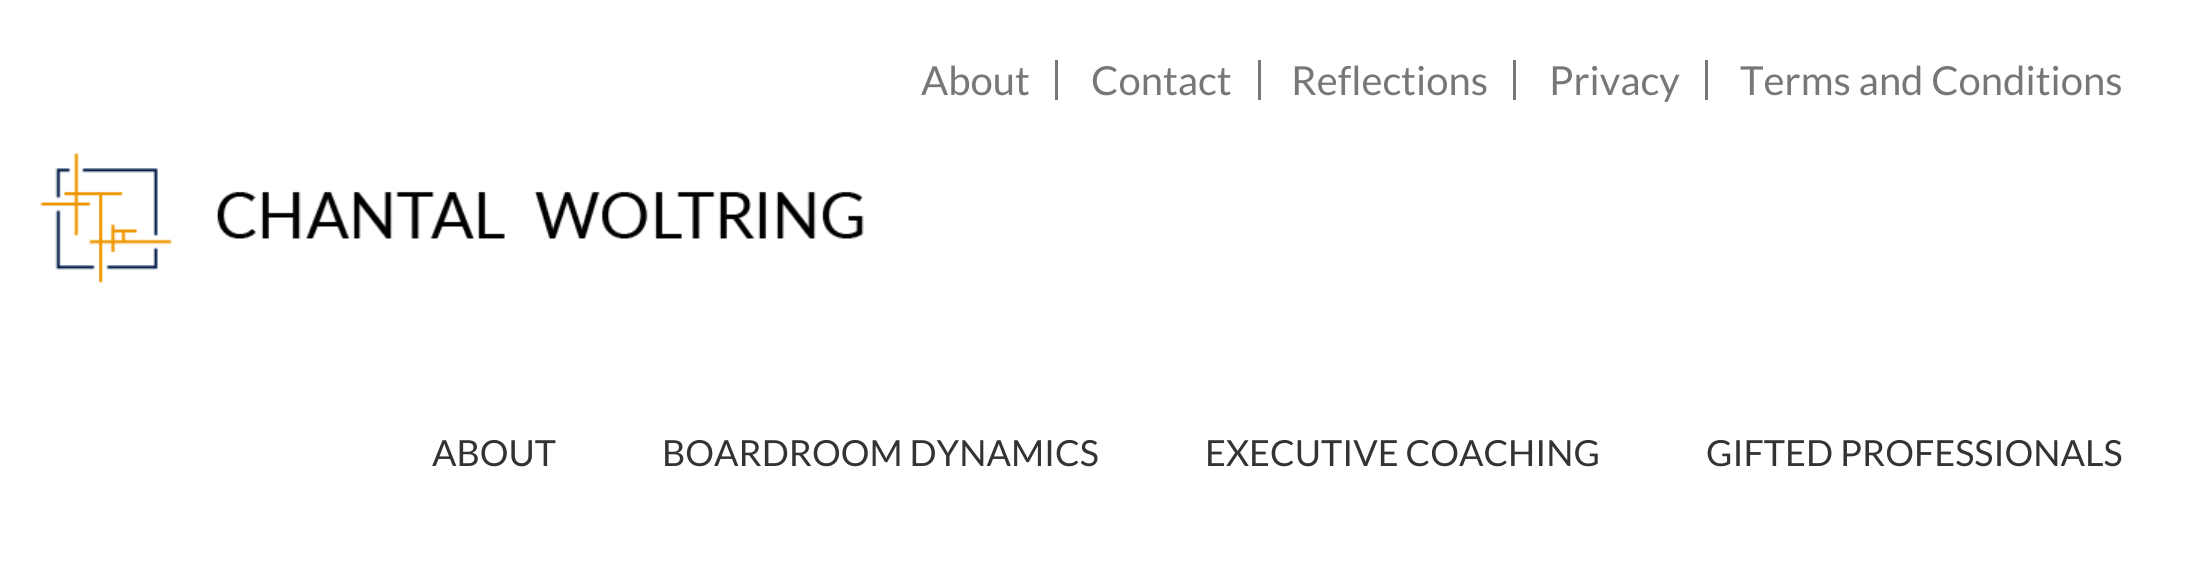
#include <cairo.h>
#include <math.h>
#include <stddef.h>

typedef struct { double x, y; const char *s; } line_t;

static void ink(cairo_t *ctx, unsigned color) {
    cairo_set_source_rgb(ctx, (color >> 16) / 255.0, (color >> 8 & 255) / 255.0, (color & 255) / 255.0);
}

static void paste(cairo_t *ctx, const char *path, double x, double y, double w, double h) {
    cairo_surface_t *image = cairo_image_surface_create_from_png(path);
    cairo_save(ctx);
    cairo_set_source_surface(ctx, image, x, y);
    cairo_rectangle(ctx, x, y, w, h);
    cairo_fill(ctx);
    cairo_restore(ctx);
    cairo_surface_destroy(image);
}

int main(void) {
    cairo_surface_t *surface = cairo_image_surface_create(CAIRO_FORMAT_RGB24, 2208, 574);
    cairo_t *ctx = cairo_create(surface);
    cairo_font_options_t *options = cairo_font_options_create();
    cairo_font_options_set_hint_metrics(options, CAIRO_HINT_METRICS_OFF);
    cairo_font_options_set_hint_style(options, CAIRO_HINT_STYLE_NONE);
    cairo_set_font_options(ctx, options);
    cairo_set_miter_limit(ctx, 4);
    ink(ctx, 0xFFFFFF);
    cairo_paint(ctx);
    ink(ctx, 0x777777);
    cairo_rectangle(ctx, 1055, 60, 3, 40);
    cairo_fill(ctx);
    cairo_select_font_face(ctx, "Lato", CAIRO_FONT_SLANT_NORMAL, CAIRO_FONT_WEIGHT_NORMAL);
    cairo_set_font_size(ctx, 40);
    cairo_move_to(ctx, 921, 95);
    cairo_show_text(ctx, "About");
    cairo_rectangle(ctx, 1258, 60, 3, 40);
    cairo_fill(ctx);
    cairo_move_to(ctx, 1091, 95);
    cairo_show_text(ctx, "Contact");
    cairo_rectangle(ctx, 1513, 60, 3, 40);
    cairo_fill(ctx);
    cairo_move_to(ctx, 1291, 95);
    cairo_show_text(ctx, "Reflections");
    cairo_rectangle(ctx, 1705, 60, 3, 40);
    cairo_fill(ctx);
    cairo_move_to(ctx, 1549, 95);
    cairo_show_text(ctx, "Privacy");
    cairo_move_to(ctx, 1740, 95);
    cairo_show_text(ctx, "Terms and Conditions");
    paste(ctx, "media/1.png", 40, 153, 824, 131);
    cairo_set_font_size(ctx, 36);
    ink(ctx, 0x333333);
    {
        static const line_t items[] = {
            {432, 466, "ABOUT"},
            {662, 466, "BOARDROOM DYNAMICS"},
            {1205, 466, "EXECUTIVE COACHING"},
            {1706, 466, "GIFTED PROFESSIONALS"},
        };
        for (size_t i = 0; i < sizeof items / sizeof *items; i++) {
            cairo_move_to(ctx, items[i].x, items[i].y);
            cairo_show_text(ctx, items[i].s);
        }
    }
    cairo_surface_write_to_png(surface, "image.png");
    cairo_font_options_destroy(options);
    cairo_destroy(ctx);
    cairo_surface_destroy(surface);
    return 0;
}
